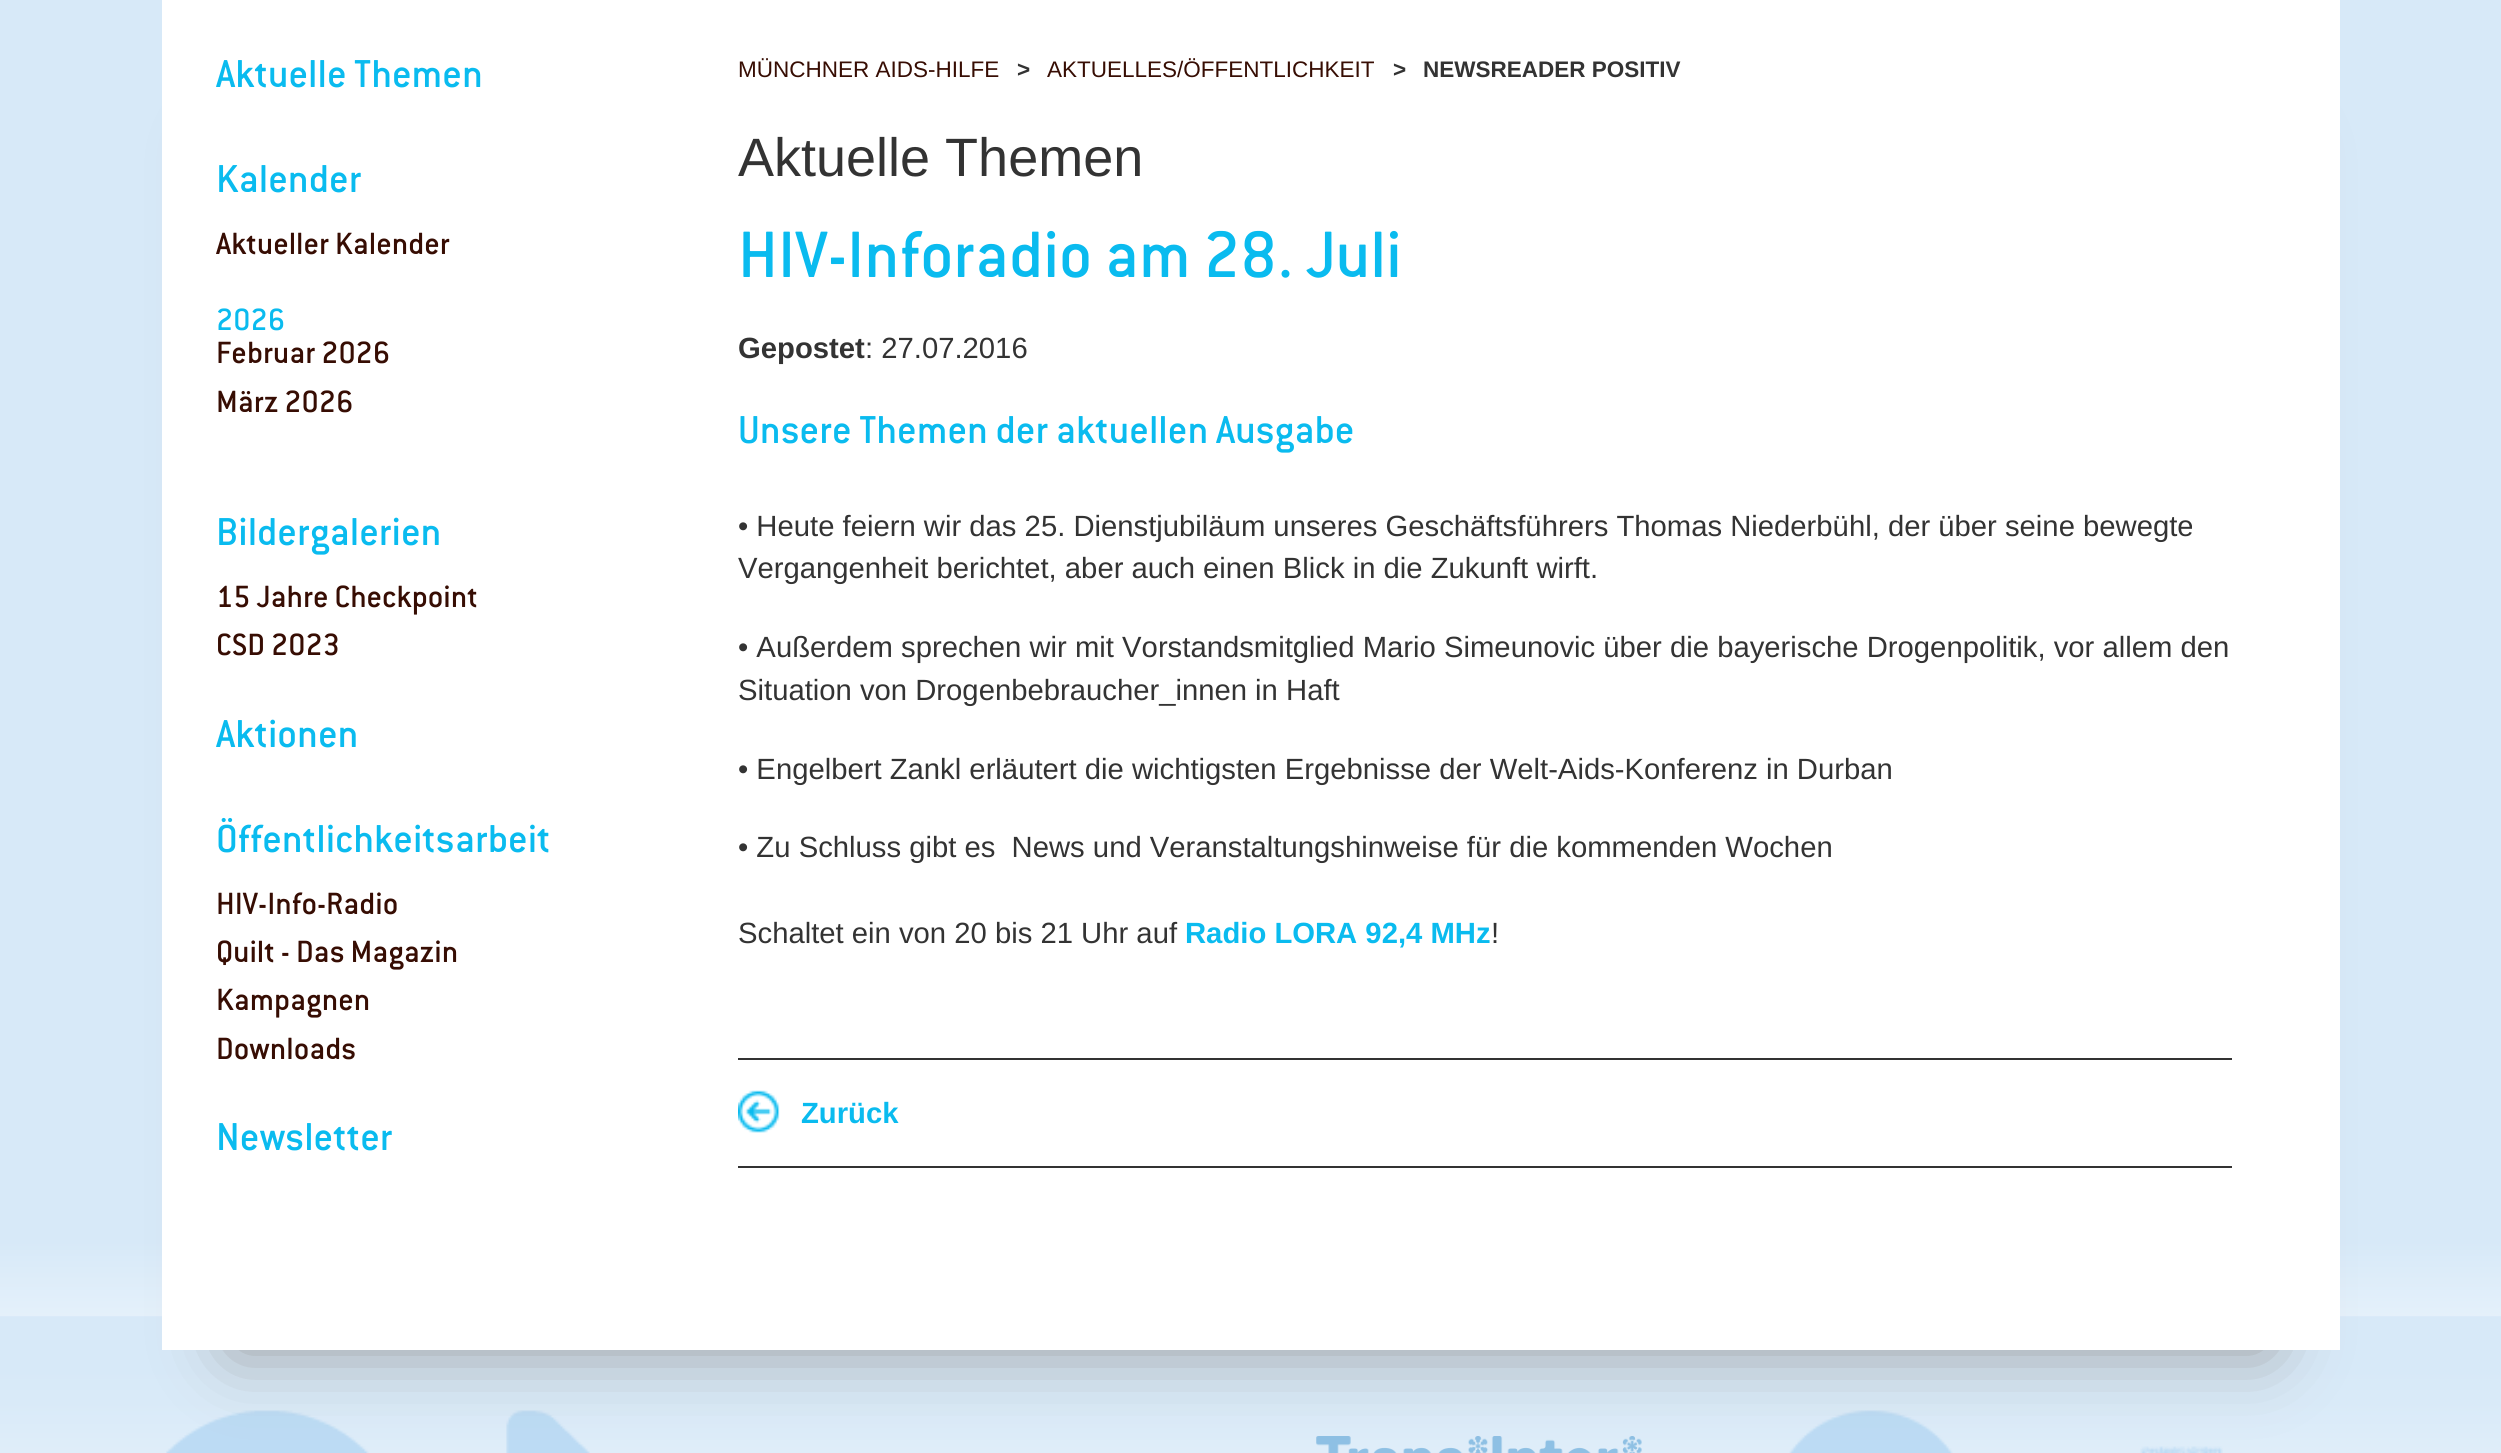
#include <cairo.h>
#include <math.h>
#include <stddef.h>

typedef struct { double x, y; const char *s; } line_t;

static void ink(cairo_t *ctx, unsigned color) {
    cairo_set_source_rgb(ctx, (color >> 16) / 255.0, (color >> 8 & 255) / 255.0, (color & 255) / 255.0);
}

static void round_path(cairo_t *ctx, double x, double y, double w, double h, double r) {
    cairo_new_sub_path(ctx);
    cairo_arc(ctx, x + w - r, y + h - r, r, 0, M_PI / 2);
    cairo_arc(ctx, x + r, y + h - r, r, M_PI / 2, M_PI);
    cairo_arc(ctx, x + r, y + r, r, M_PI, 1.5 * M_PI);
    cairo_arc(ctx, x + w - r, y + r, r, 1.5 * M_PI, 2 * M_PI);
    cairo_close_path(ctx);
}

static void blur_box(cairo_t *ctx, double x, double y, double w, double h, double r, double blur, double alpha) {
    cairo_push_group_with_content(ctx, CAIRO_CONTENT_ALPHA);
    cairo_set_operator(ctx, CAIRO_OPERATOR_SOURCE);
    for (int i = 15; i >= -15 && fmin(w, h) + blur * i / 3 > 0; i -= 2) {
        double e = blur * i / 6;
        cairo_set_source_rgba(ctx, 0, 0, 0, alpha * erfc((i - 1) / 8.5) / 2);
        round_path(ctx, x - e, y - e, w + 2 * e, h + 2 * e, fmax(0, fmin(r + e + blur * .6, fmin(w, h) / 2 + e)));
        cairo_fill(ctx);
    }
    cairo_pattern_t *soft = cairo_pop_group(ctx);
    cairo_mask(ctx, soft);
    cairo_pattern_destroy(soft);
}

static void paste(cairo_t *ctx, const char *path, double x, double y, double w, double h) {
    cairo_surface_t *image = cairo_image_surface_create_from_png(path);
    cairo_save(ctx);
    cairo_set_source_surface(ctx, image, x, y);
    cairo_rectangle(ctx, x, y, w, h);
    cairo_fill(ctx);
    cairo_restore(ctx);
    cairo_surface_destroy(image);
}

int main(void) {
    cairo_surface_t *surface = cairo_image_surface_create(CAIRO_FORMAT_RGB24, 2501, 1453);
    cairo_t *ctx = cairo_create(surface);
    cairo_font_options_t *options = cairo_font_options_create();
    cairo_font_options_set_hint_metrics(options, CAIRO_HINT_METRICS_OFF);
    cairo_font_options_set_hint_style(options, CAIRO_HINT_STYLE_NONE);
    cairo_set_font_options(ctx, options);
    cairo_set_miter_limit(ctx, 4);
    cairo_pattern_t *gradient;
    ink(ctx, 0xFFFFFF);
    cairo_paint(ctx);
    gradient = cairo_pattern_create_linear(1251, -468, 1251, 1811);
    cairo_pattern_add_color_stop_rgba(gradient, 0.75, 0.843, 0.914, 0.973, 1);
    cairo_pattern_add_color_stop_rgba(gradient, 0.85, 1, 1, 1, 1);
    cairo_set_source(ctx, gradient);
    cairo_pattern_destroy(gradient);
    cairo_rectangle(ctx, 0, 0, 2501, 1317);
    cairo_fill(ctx);
    paste(ctx, "media/1.png", 0, 1316, 2501, 137);
    paste(ctx, "media/3.png", 166, 1410, 203, 43);
    paste(ctx, "media/4.png", 506, 1410, 84, 43);
    paste(ctx, "media/5.png", 1316, 1436, 326, 17);
    paste(ctx, "media/6.png", 1789, 1410, 164, 43);
    paste(ctx, "media/7.png", 2140, 1446, 83, 7);
    ink(ctx, 0x999999);
    blur_box(ctx, 234, 144, 2034, 1206, 0, 36, 1);
    ink(ctx, 0xFFFFFF);
    cairo_rectangle(ctx, 162, 0, 2178, 1350);
    cairo_fill(ctx);
    cairo_select_font_face(ctx, "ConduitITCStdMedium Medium", CAIRO_FONT_SLANT_NORMAL, CAIRO_FONT_WEIGHT_NORMAL);
    cairo_set_font_size(ctx, 42.75);
    ink(ctx, 0x0ABBEF);
    cairo_move_to(ctx, 216, 87);
    cairo_show_text(ctx, "Aktuelle Themen");
    cairo_move_to(ctx, 216, 192);
    cairo_show_text(ctx, "Kalender");
    cairo_set_font_size(ctx, 33.75);
    ink(ctx, 0x370D03);
    cairo_move_to(ctx, 216, 254);
    cairo_show_text(ctx, "Aktueller Kalender");
    ink(ctx, 0x0ABBEF);
    cairo_move_to(ctx, 216, 330);
    cairo_show_text(ctx, "2026");
    ink(ctx, 0x370D03);
    cairo_move_to(ctx, 216, 363);
    cairo_show_text(ctx, "Februar 2026");
    cairo_move_to(ctx, 216, 412);
    cairo_show_text(ctx, "März 2026");
    cairo_set_font_size(ctx, 42.75);
    ink(ctx, 0x0ABBEF);
    cairo_move_to(ctx, 216, 545);
    cairo_show_text(ctx, "Bildergalerien");
    cairo_set_font_size(ctx, 33.75);
    ink(ctx, 0x370D03);
    cairo_move_to(ctx, 216, 607);
    cairo_show_text(ctx, "15 Jahre Checkpoint");
    cairo_move_to(ctx, 216, 655);
    cairo_show_text(ctx, "CSD 2023");
    cairo_set_font_size(ctx, 42.75);
    ink(ctx, 0x0ABBEF);
    cairo_move_to(ctx, 216, 747);
    cairo_show_text(ctx, "Aktionen");
    cairo_move_to(ctx, 216, 852);
    cairo_show_text(ctx, "Öffentlichkeitsarbeit");
    cairo_set_font_size(ctx, 33.75);
    ink(ctx, 0x370D03);
    {
        static const line_t items[] = {
            {216, 914, "HIV-Info-Radio"},
            {216, 962, "Quilt - Das Magazin"},
            {216, 1010, "Kampagnen"},
            {216, 1059, "Downloads"},
        };
        for (size_t i = 0; i < sizeof items / sizeof *items; i++) {
            cairo_move_to(ctx, items[i].x, items[i].y);
            cairo_show_text(ctx, items[i].s);
        }
    }
    cairo_set_font_size(ctx, 42.75);
    ink(ctx, 0x0ABBEF);
    cairo_move_to(ctx, 216, 1150);
    cairo_show_text(ctx, "Newsletter");
    cairo_select_font_face(ctx, "Liberation Sans", CAIRO_FONT_SLANT_NORMAL, CAIRO_FONT_WEIGHT_NORMAL);
    cairo_set_font_size(ctx, 22.5);
    ink(ctx, 0x370D03);
    cairo_move_to(ctx, 738, 77);
    cairo_show_text(ctx, "MÜNCHNER AIDS-HILFE");
    cairo_select_font_face(ctx, "Liberation Sans", CAIRO_FONT_SLANT_NORMAL, CAIRO_FONT_WEIGHT_BOLD);
    ink(ctx, 0x333333);
    cairo_move_to(ctx, 1017, 77);
    cairo_show_text(ctx, ">");
    cairo_select_font_face(ctx, "Liberation Sans", CAIRO_FONT_SLANT_NORMAL, CAIRO_FONT_WEIGHT_NORMAL);
    ink(ctx, 0x370D03);
    cairo_move_to(ctx, 1047, 77);
    cairo_show_text(ctx, "AKTUELLES/ÖFFENTLICHKEIT");
    cairo_select_font_face(ctx, "Liberation Sans", CAIRO_FONT_SLANT_NORMAL, CAIRO_FONT_WEIGHT_BOLD);
    ink(ctx, 0x333333);
    cairo_move_to(ctx, 1393, 77);
    cairo_show_text(ctx, ">");
    cairo_move_to(ctx, 1423, 77);
    cairo_show_text(ctx, "NEWSREADER POSITIV");
    cairo_select_font_face(ctx, "Liberation Sans", CAIRO_FONT_SLANT_NORMAL, CAIRO_FONT_WEIGHT_NORMAL);
    cairo_set_font_size(ctx, 54);
    cairo_move_to(ctx, 738, 176);
    cairo_show_text(ctx, "Aktuelle Themen");
    cairo_select_font_face(ctx, "ConduitITCStdMedium Medium", CAIRO_FONT_SLANT_NORMAL, CAIRO_FONT_WEIGHT_NORMAL);
    cairo_set_font_size(ctx, 72);
    ink(ctx, 0x0ABBEF);
    cairo_move_to(ctx, 738, 277);
    cairo_show_text(ctx, "HIV-Inforadio am 28. Juli");
    cairo_select_font_face(ctx, "Liberation Sans", CAIRO_FONT_SLANT_NORMAL, CAIRO_FONT_WEIGHT_BOLD);
    cairo_set_font_size(ctx, 29.25);
    ink(ctx, 0x333333);
    cairo_move_to(ctx, 738, 358);
    cairo_show_text(ctx, "Gepostet");
    cairo_select_font_face(ctx, "Liberation Sans", CAIRO_FONT_SLANT_NORMAL, CAIRO_FONT_WEIGHT_NORMAL);
    cairo_move_to(ctx, 865, 358);
    cairo_show_text(ctx, ": 27.07.2016");
    cairo_select_font_face(ctx, "ConduitITCStdMedium Medium", CAIRO_FONT_SLANT_NORMAL, CAIRO_FONT_WEIGHT_NORMAL);
    cairo_set_font_size(ctx, 42.75);
    ink(ctx, 0x0ABBEF);
    cairo_move_to(ctx, 738, 443);
    cairo_show_text(ctx, "Unsere Themen der aktuellen Ausgabe");
    cairo_select_font_face(ctx, "Liberation Sans", CAIRO_FONT_SLANT_NORMAL, CAIRO_FONT_WEIGHT_NORMAL);
    cairo_set_font_size(ctx, 29.25);
    ink(ctx, 0x333333);
    {
        static const line_t items[] = {
            {738, 536, "• Heute feiern wir das 25. Dienstjubiläum unseres Geschäftsführers Thomas Niederbühl, der über seine bewegte"},
            {738, 578, "Vergangenheit berichtet, aber auch einen Blick in die Zukunft wirft."},
            {738, 657, "• Außerdem sprechen wir mit Vorstandsmitglied Mario Simeunovic über die bayerische Drogenpolitik, vor allem den"},
            {738, 700, "Situation von Drogenbebraucher_innen in Haft"},
            {738, 779, "• Engelbert Zankl erläutert die wichtigsten Ergebnisse der Welt-Aids-Konferenz in Durban"},
            {738, 857, "• Zu Schluss gibt es  News und Veranstaltungshinweise für die kommenden Wochen"},
            {738, 943, "Schaltet ein von 20 bis 21 Uhr auf"},
        };
        for (size_t i = 0; i < sizeof items / sizeof *items; i++) {
            cairo_move_to(ctx, items[i].x, items[i].y);
            cairo_show_text(ctx, items[i].s);
        }
    }
    cairo_select_font_face(ctx, "Liberation Sans", CAIRO_FONT_SLANT_NORMAL, CAIRO_FONT_WEIGHT_BOLD);
    ink(ctx, 0x0ABBEF);
    cairo_move_to(ctx, 1185, 943);
    cairo_show_text(ctx, "Radio LORA 92,4 MHz");
    cairo_select_font_face(ctx, "Liberation Sans", CAIRO_FONT_SLANT_NORMAL, CAIRO_FONT_WEIGHT_NORMAL);
    ink(ctx, 0x333333);
    cairo_move_to(ctx, 1491, 943);
    cairo_show_text(ctx, "!");
    paste(ctx, "media/2.png", 738, 1090, 42, 43);
    cairo_rectangle(ctx, 738, 1058, 1494, 2);
    cairo_fill(ctx);
    cairo_rectangle(ctx, 738, 1166, 1494, 2);
    cairo_fill(ctx);
    cairo_select_font_face(ctx, "Liberation Sans", CAIRO_FONT_SLANT_NORMAL, CAIRO_FONT_WEIGHT_BOLD);
    ink(ctx, 0x0ABBEF);
    cairo_move_to(ctx, 801, 1123);
    cairo_show_text(ctx, "Zurück");
    cairo_surface_write_to_png(surface, "image.png");
    cairo_font_options_destroy(options);
    cairo_destroy(ctx);
    cairo_surface_destroy(surface);
    return 0;
}
